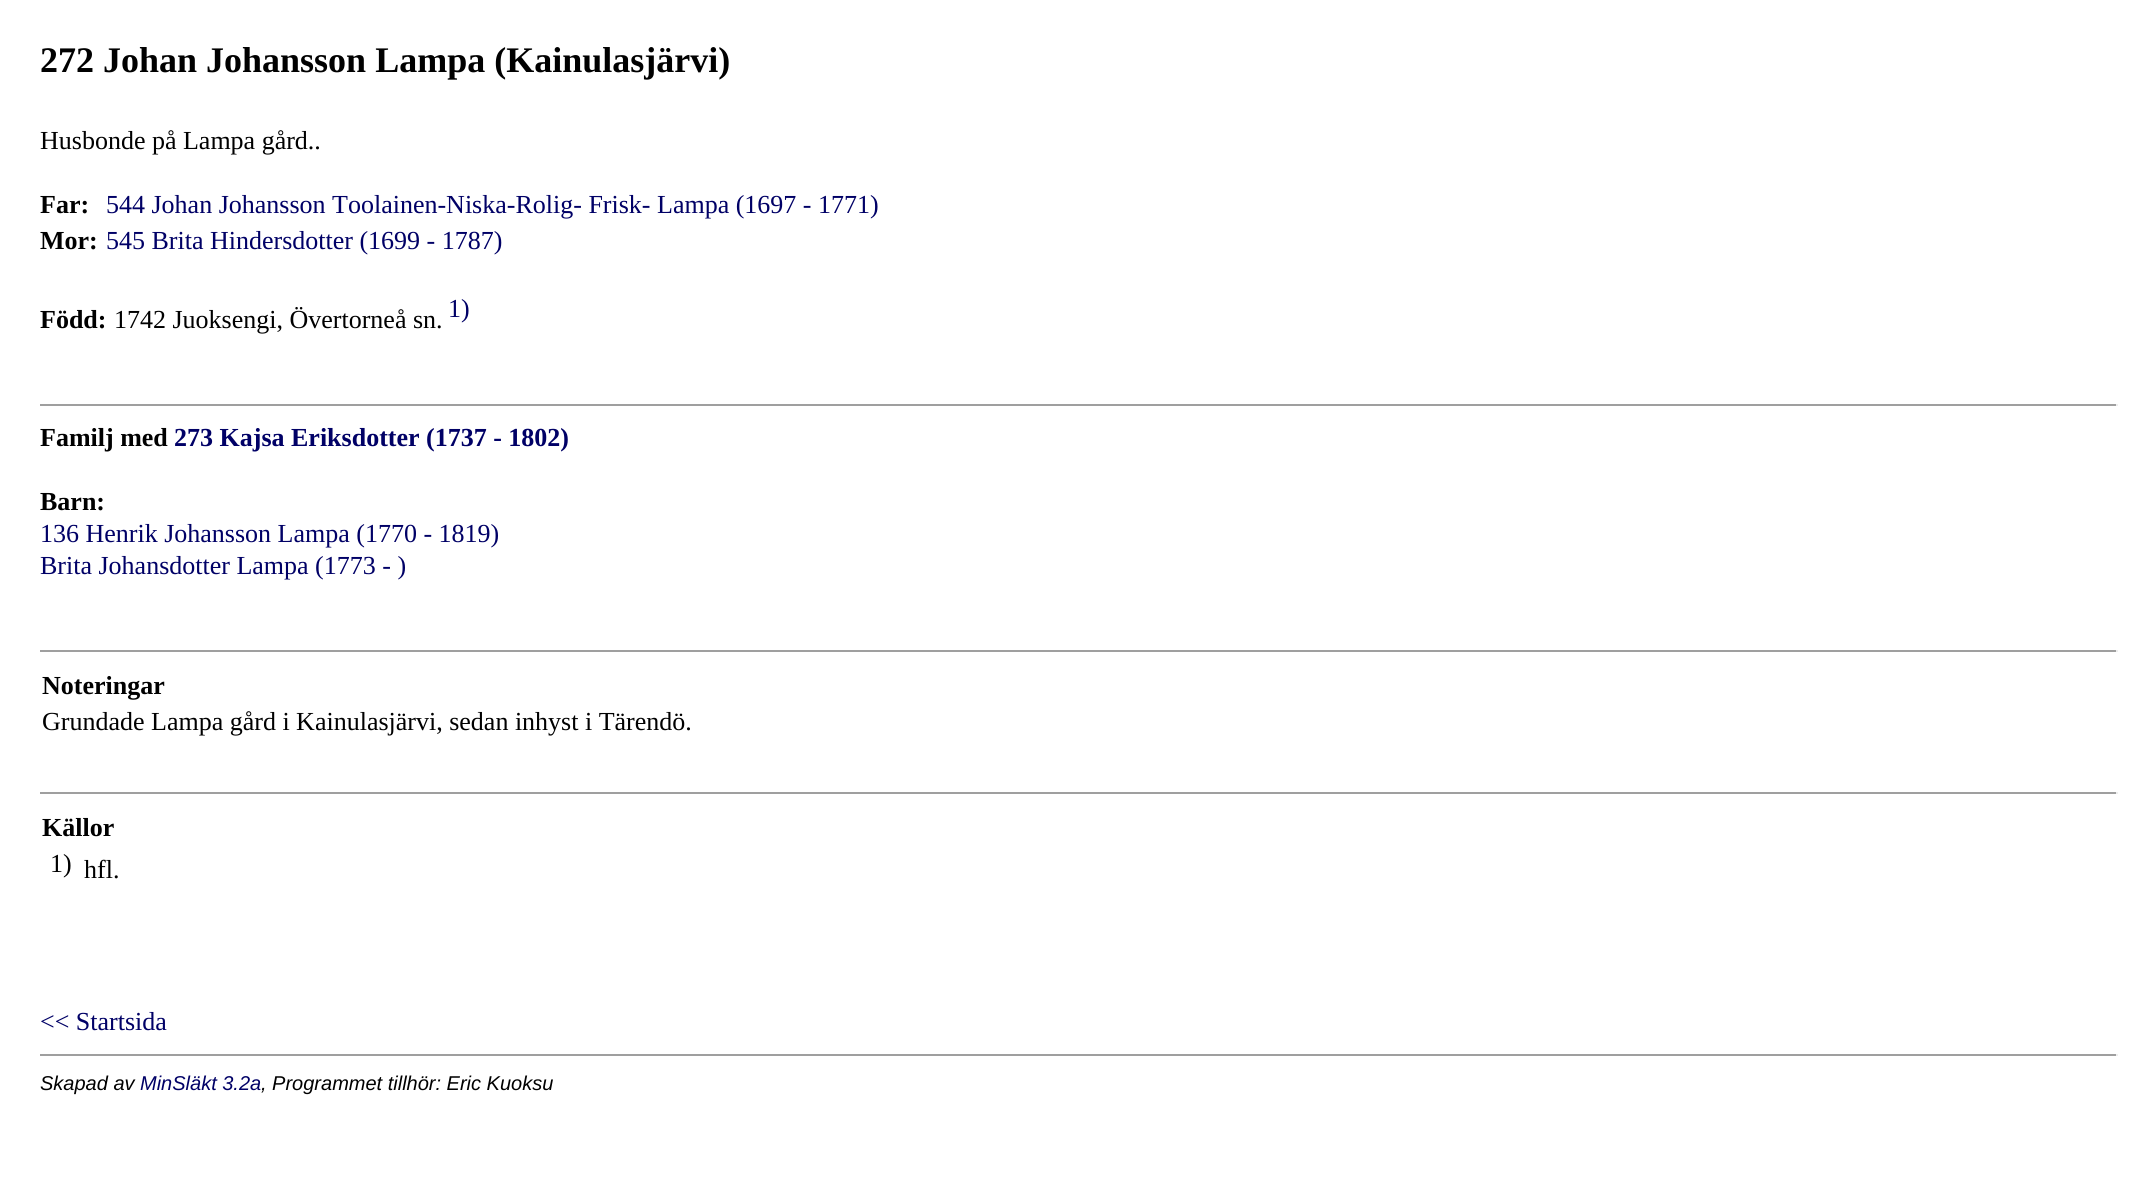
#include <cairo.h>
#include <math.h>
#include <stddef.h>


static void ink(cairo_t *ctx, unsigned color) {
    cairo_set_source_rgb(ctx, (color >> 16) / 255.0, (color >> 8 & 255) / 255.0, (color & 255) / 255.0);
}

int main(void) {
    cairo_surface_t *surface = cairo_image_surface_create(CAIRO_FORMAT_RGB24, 2141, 1186);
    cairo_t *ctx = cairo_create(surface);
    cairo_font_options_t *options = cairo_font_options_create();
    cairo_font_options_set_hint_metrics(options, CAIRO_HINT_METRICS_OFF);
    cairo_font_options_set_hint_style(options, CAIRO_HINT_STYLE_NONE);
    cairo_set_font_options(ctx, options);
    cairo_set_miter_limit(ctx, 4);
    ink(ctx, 0xFFFFFF);
    cairo_paint(ctx);
    cairo_select_font_face(ctx, "Liberation Serif", CAIRO_FONT_SLANT_NORMAL, CAIRO_FONT_WEIGHT_BOLD);
    cairo_set_font_size(ctx, 36);
    ink(ctx, 0x000000);
    cairo_move_to(ctx, 40, 72);
    cairo_show_text(ctx, "272 Johan Johansson Lampa (Kainulasjärvi)");
    cairo_select_font_face(ctx, "Liberation Serif", CAIRO_FONT_SLANT_NORMAL, CAIRO_FONT_WEIGHT_NORMAL);
    cairo_set_font_size(ctx, 26);
    cairo_move_to(ctx, 40, 149);
    cairo_show_text(ctx, "Husbonde på Lampa gård..");
    cairo_select_font_face(ctx, "Liberation Serif", CAIRO_FONT_SLANT_NORMAL, CAIRO_FONT_WEIGHT_BOLD);
    cairo_move_to(ctx, 40, 213);
    cairo_show_text(ctx, "Far:");
    cairo_select_font_face(ctx, "Liberation Serif", CAIRO_FONT_SLANT_NORMAL, CAIRO_FONT_WEIGHT_NORMAL);
    ink(ctx, 0x000066);
    cairo_move_to(ctx, 106, 213);
    cairo_show_text(ctx, "544 Johan Johansson Toolainen-Niska-Rolig- Frisk- Lampa (1697 - 1771)");
    cairo_select_font_face(ctx, "Liberation Serif", CAIRO_FONT_SLANT_NORMAL, CAIRO_FONT_WEIGHT_BOLD);
    ink(ctx, 0x000000);
    cairo_move_to(ctx, 40, 249);
    cairo_show_text(ctx, "Mor:");
    cairo_select_font_face(ctx, "Liberation Serif", CAIRO_FONT_SLANT_NORMAL, CAIRO_FONT_WEIGHT_NORMAL);
    ink(ctx, 0x000066);
    cairo_move_to(ctx, 106, 249);
    cairo_show_text(ctx, "545 Brita Hindersdotter (1699 - 1787)");
    cairo_select_font_face(ctx, "Liberation Serif", CAIRO_FONT_SLANT_NORMAL, CAIRO_FONT_WEIGHT_BOLD);
    ink(ctx, 0x000000);
    cairo_move_to(ctx, 40, 328);
    cairo_show_text(ctx, "Född:");
    cairo_select_font_face(ctx, "Liberation Serif", CAIRO_FONT_SLANT_NORMAL, CAIRO_FONT_WEIGHT_NORMAL);
    cairo_move_to(ctx, 114, 328);
    cairo_show_text(ctx, "1742 Juoksengi, Övertorneå sn.");
    ink(ctx, 0x000066);
    cairo_move_to(ctx, 448, 317);
    cairo_show_text(ctx, "1)");
    ink(ctx, 0x9F9F9F);
    cairo_rectangle(ctx, 40, 404, 2078, 2);
    cairo_fill(ctx);
    ink(ctx, 0xEEEEEE);
    cairo_rectangle(ctx, 2116, 404, 2, 2);
    cairo_fill(ctx);
    cairo_select_font_face(ctx, "Liberation Serif", CAIRO_FONT_SLANT_NORMAL, CAIRO_FONT_WEIGHT_BOLD);
    ink(ctx, 0x000000);
    cairo_move_to(ctx, 40, 446);
    cairo_show_text(ctx, "Familj med");
    ink(ctx, 0x000066);
    cairo_move_to(ctx, 174, 446);
    cairo_show_text(ctx, "273 Kajsa Eriksdotter (1737 - 1802)");
    ink(ctx, 0x000000);
    cairo_move_to(ctx, 40, 510);
    cairo_show_text(ctx, "Barn:");
    cairo_select_font_face(ctx, "Liberation Serif", CAIRO_FONT_SLANT_NORMAL, CAIRO_FONT_WEIGHT_NORMAL);
    ink(ctx, 0x000066);
    cairo_move_to(ctx, 40, 542);
    cairo_show_text(ctx, "136 Henrik Johansson Lampa (1770 - 1819)");
    cairo_move_to(ctx, 40, 574);
    cairo_show_text(ctx, "Brita Johansdotter Lampa (1773 - )");
    ink(ctx, 0x9F9F9F);
    cairo_rectangle(ctx, 40, 650, 2078, 2);
    cairo_fill(ctx);
    ink(ctx, 0xEEEEEE);
    cairo_rectangle(ctx, 2116, 650, 2, 2);
    cairo_fill(ctx);
    cairo_select_font_face(ctx, "Liberation Serif", CAIRO_FONT_SLANT_NORMAL, CAIRO_FONT_WEIGHT_BOLD);
    ink(ctx, 0x000000);
    cairo_move_to(ctx, 42, 694);
    cairo_show_text(ctx, "Noteringar");
    cairo_select_font_face(ctx, "Liberation Serif", CAIRO_FONT_SLANT_NORMAL, CAIRO_FONT_WEIGHT_NORMAL);
    cairo_move_to(ctx, 42, 730);
    cairo_show_text(ctx, "Grundade Lampa gård i Kainulasjärvi, sedan inhyst i Tärendö.");
    ink(ctx, 0x9F9F9F);
    cairo_rectangle(ctx, 40, 792, 2078, 2);
    cairo_fill(ctx);
    ink(ctx, 0xEEEEEE);
    cairo_rectangle(ctx, 2116, 792, 2, 2);
    cairo_fill(ctx);
    cairo_select_font_face(ctx, "Liberation Serif", CAIRO_FONT_SLANT_NORMAL, CAIRO_FONT_WEIGHT_BOLD);
    ink(ctx, 0x000000);
    cairo_move_to(ctx, 42, 836);
    cairo_show_text(ctx, "Källor");
    cairo_select_font_face(ctx, "Liberation Serif", CAIRO_FONT_SLANT_NORMAL, CAIRO_FONT_WEIGHT_NORMAL);
    cairo_move_to(ctx, 50, 872);
    cairo_show_text(ctx, "1)");
    cairo_move_to(ctx, 84, 878);
    cairo_show_text(ctx, "hfl.");
    ink(ctx, 0x000066);
    cairo_move_to(ctx, 40, 1030);
    cairo_show_text(ctx, "<< Startsida");
    ink(ctx, 0x9F9F9F);
    cairo_rectangle(ctx, 40, 1054, 2078, 2);
    cairo_fill(ctx);
    ink(ctx, 0xEEEEEE);
    cairo_rectangle(ctx, 2116, 1054, 2, 2);
    cairo_fill(ctx);
    cairo_select_font_face(ctx, "Liberation Sans", CAIRO_FONT_SLANT_ITALIC, CAIRO_FONT_WEIGHT_NORMAL);
    cairo_set_font_size(ctx, 20);
    ink(ctx, 0x000000);
    cairo_move_to(ctx, 40, 1090);
    cairo_show_text(ctx, "Skapad av");
    ink(ctx, 0x000066);
    cairo_move_to(ctx, 140, 1090);
    cairo_show_text(ctx, "MinSläkt 3.2a");
    ink(ctx, 0x000000);
    cairo_move_to(ctx, 261, 1090);
    cairo_show_text(ctx, ", Programmet tillhör: Eric Kuoksu");
    cairo_surface_write_to_png(surface, "image.png");
    cairo_font_options_destroy(options);
    cairo_destroy(ctx);
    cairo_surface_destroy(surface);
    return 0;
}
